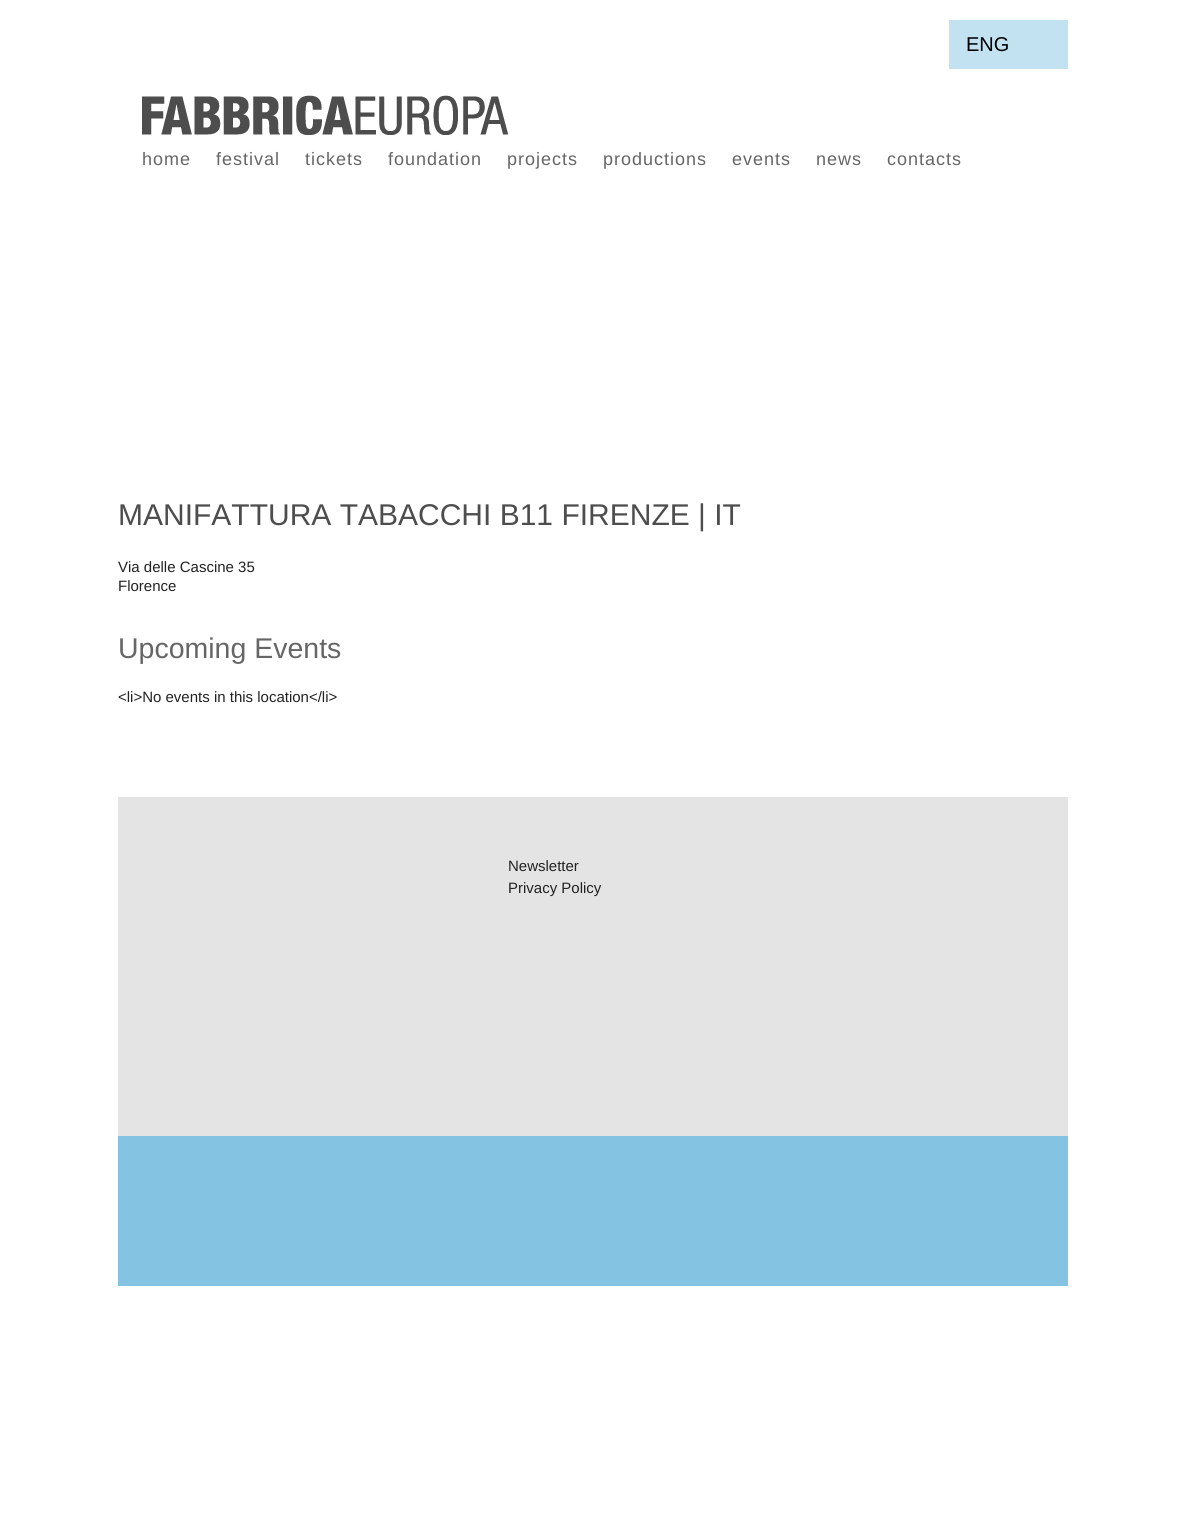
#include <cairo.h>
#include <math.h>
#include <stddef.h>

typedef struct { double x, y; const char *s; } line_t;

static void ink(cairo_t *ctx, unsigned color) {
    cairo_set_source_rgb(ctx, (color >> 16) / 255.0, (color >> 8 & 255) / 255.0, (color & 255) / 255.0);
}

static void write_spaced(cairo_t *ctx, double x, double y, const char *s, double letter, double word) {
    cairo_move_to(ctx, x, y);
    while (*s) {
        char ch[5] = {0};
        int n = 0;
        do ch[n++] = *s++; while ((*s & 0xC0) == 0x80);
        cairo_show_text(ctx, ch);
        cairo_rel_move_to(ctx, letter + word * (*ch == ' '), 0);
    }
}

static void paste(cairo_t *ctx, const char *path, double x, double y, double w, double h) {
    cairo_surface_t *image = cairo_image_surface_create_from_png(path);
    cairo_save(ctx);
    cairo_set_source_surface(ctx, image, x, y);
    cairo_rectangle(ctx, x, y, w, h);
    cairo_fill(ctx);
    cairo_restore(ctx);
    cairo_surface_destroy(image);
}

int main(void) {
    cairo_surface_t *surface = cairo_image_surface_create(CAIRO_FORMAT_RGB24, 1185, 1536);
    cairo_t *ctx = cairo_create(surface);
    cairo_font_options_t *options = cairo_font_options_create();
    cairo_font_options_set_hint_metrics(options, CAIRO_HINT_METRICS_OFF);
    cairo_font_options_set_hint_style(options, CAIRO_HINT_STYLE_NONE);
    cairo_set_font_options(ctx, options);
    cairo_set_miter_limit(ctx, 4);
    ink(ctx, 0xFFFFFF);
    cairo_paint(ctx);
    ink(ctx, 0xC2E1F1);
    cairo_rectangle(ctx, 949, 20, 119, 49);
    cairo_fill(ctx);
    cairo_select_font_face(ctx, "Liberation Sans", CAIRO_FONT_SLANT_NORMAL, CAIRO_FONT_WEIGHT_NORMAL);
    cairo_set_font_size(ctx, 20);
    ink(ctx, 0x000000);
    cairo_move_to(ctx, 966, 51);
    cairo_show_text(ctx, "ENG");
    paste(ctx, "media/1.png", 142, 95, 366, 40);
    cairo_set_font_size(ctx, 18);
    ink(ctx, 0x666666);
    {
        static const line_t items[] = {
            {142, 165, "home"},
            {216, 165, "festival"},
            {305, 165, "tickets"},
            {388, 165, "foundation"},
            {507, 165, "projects"},
            {603, 165, "productions"},
            {732, 165, "events"},
            {816, 165, "news"},
            {887, 165, "contacts"},
        };
        for (size_t i = 0; i < sizeof items / sizeof *items; i++) {
            write_spaced(ctx, items[i].x, items[i].y, items[i].s, 1, 0);
        }
    }
    cairo_set_font_size(ctx, 30);
    ink(ctx, 0x4D4D4D);
    cairo_move_to(ctx, 118, 525);
    cairo_show_text(ctx, "MANIFATTURA TABACCHI B11 FIRENZE | IT");
    cairo_set_font_size(ctx, 15);
    ink(ctx, 0x222222);
    cairo_move_to(ctx, 118, 572);
    cairo_show_text(ctx, "Via delle Cascine 35");
    cairo_move_to(ctx, 118, 591);
    cairo_show_text(ctx, "Florence");
    cairo_set_font_size(ctx, 28.5);
    ink(ctx, 0x666666);
    cairo_move_to(ctx, 118, 658);
    cairo_show_text(ctx, "Upcoming Events");
    cairo_set_font_size(ctx, 15);
    ink(ctx, 0x222222);
    cairo_move_to(ctx, 118, 702);
    cairo_show_text(ctx, "<li>No events in this location</li>");
    ink(ctx, 0xE4E4E4);
    cairo_rectangle(ctx, 118, 797, 950, 339);
    cairo_fill(ctx);
    ink(ctx, 0x222222);
    cairo_move_to(ctx, 508, 871);
    cairo_show_text(ctx, "Newsletter");
    cairo_move_to(ctx, 508, 893);
    cairo_show_text(ctx, "Privacy Policy");
    ink(ctx, 0x85C3E2);
    cairo_rectangle(ctx, 118, 1136, 950, 150);
    cairo_fill(ctx);
    cairo_surface_write_to_png(surface, "image.png");
    cairo_font_options_destroy(options);
    cairo_destroy(ctx);
    cairo_surface_destroy(surface);
    return 0;
}
